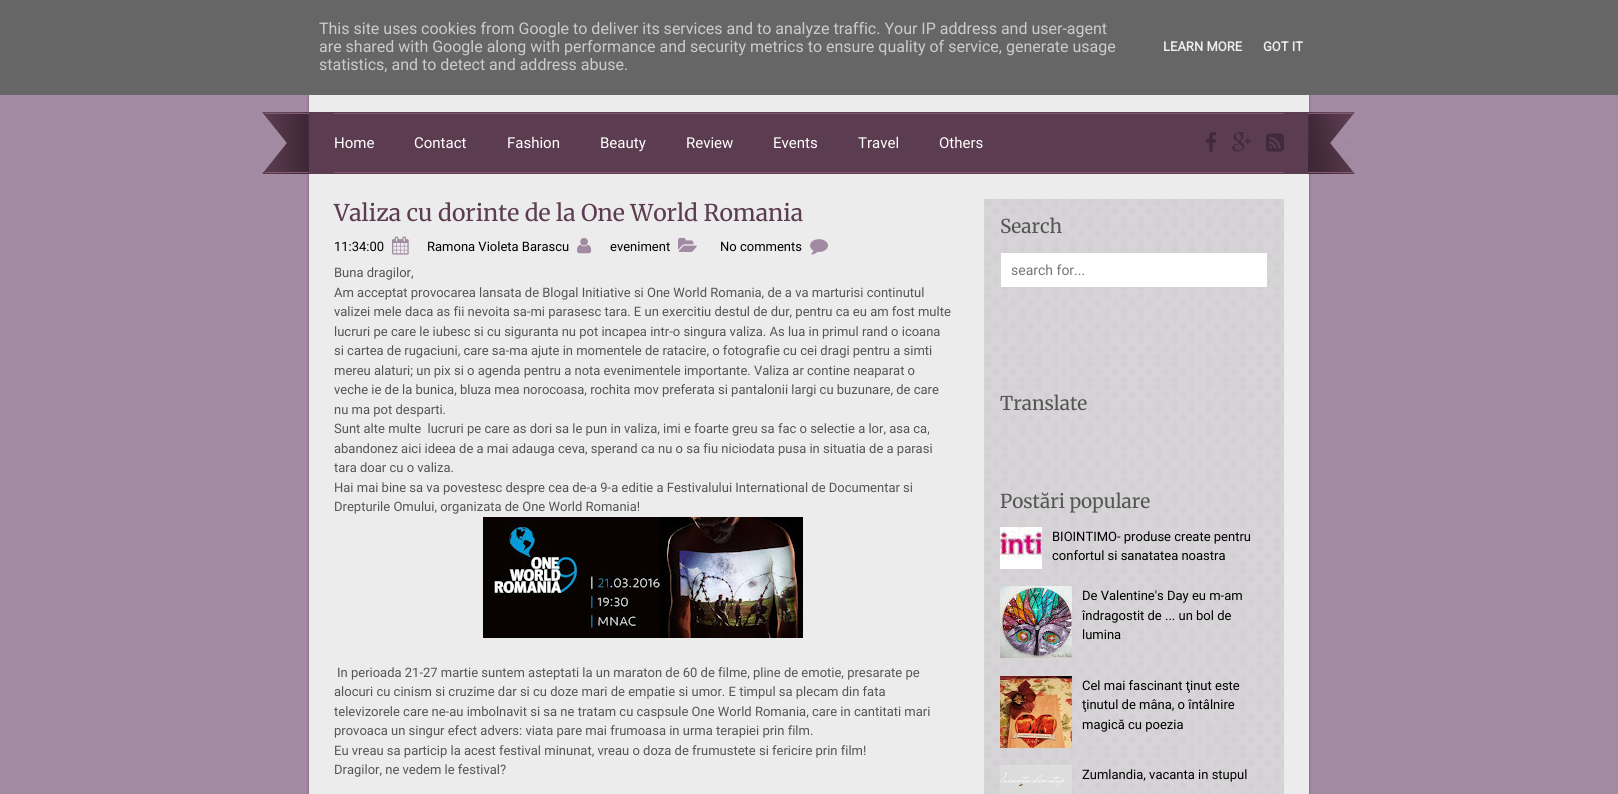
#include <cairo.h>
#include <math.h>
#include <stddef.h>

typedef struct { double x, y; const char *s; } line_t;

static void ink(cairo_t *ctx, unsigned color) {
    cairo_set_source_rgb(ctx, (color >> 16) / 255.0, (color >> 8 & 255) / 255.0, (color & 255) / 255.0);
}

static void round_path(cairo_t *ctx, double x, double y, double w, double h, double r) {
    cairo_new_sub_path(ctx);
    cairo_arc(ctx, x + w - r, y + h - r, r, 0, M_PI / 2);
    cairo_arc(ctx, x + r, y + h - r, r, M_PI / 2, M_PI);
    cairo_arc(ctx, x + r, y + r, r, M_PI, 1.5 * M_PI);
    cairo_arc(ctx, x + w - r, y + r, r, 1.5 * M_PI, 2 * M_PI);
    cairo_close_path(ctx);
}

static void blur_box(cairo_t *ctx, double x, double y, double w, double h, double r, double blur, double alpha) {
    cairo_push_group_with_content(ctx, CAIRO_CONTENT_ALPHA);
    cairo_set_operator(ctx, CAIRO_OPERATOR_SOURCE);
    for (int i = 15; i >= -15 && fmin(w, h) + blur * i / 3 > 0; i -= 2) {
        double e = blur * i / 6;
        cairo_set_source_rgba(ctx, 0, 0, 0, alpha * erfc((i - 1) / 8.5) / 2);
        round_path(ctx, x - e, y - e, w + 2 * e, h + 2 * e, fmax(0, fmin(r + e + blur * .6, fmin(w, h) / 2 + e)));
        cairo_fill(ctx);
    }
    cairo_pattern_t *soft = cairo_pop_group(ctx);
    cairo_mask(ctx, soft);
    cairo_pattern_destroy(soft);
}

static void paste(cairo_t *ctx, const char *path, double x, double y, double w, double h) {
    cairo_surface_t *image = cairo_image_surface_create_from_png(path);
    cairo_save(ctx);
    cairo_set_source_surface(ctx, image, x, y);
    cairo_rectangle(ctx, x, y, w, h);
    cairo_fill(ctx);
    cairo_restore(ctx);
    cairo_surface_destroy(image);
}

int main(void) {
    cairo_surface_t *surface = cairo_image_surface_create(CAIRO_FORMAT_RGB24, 1618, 794);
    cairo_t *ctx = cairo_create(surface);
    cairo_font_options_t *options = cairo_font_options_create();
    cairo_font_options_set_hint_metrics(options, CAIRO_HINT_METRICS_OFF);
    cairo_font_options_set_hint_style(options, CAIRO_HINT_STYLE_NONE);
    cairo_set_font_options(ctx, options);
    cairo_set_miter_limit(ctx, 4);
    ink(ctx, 0xA38BA3);
    cairo_paint(ctx);
    ink(ctx, 0x745168);
    blur_box(ctx, 309, -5, 1000, 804, 0, 1.5, 1);
    ink(ctx, 0x666666);
    cairo_rectangle(ctx, 0, 0, 1618, 95);
    cairo_fill(ctx);
    cairo_select_font_face(ctx, "Roboto", CAIRO_FONT_SLANT_NORMAL, CAIRO_FONT_WEIGHT_NORMAL);
    cairo_set_font_size(ctx, 16);
    ink(ctx, 0xCCCCCC);
    {
        static const line_t items[] = {
            {319, 34, "This site uses cookies from Google to deliver its services and to analyze traffic. Your IP address and user-agent"},
            {319, 52, "are shared with Google along with performance and security metrics to ensure quality of service, generate usage"},
            {319, 70, "statistics, and to detect and address abuse."},
        };
        for (size_t i = 0; i < sizeof items / sizeof *items; i++) {
            cairo_move_to(ctx, items[i].x, items[i].y);
            cairo_show_text(ctx, items[i].s);
        }
    }
    cairo_select_font_face(ctx, "Roboto", CAIRO_FONT_SLANT_NORMAL, CAIRO_FONT_WEIGHT_BOLD);
    cairo_set_font_size(ctx, 13);
    ink(ctx, 0xEEEEEE);
    cairo_move_to(ctx, 1163, 51);
    cairo_show_text(ctx, "LEARN MORE");
    cairo_move_to(ctx, 1263, 51);
    cairo_show_text(ctx, "GOT IT");
    ink(ctx, 0xECECEC);
    cairo_rectangle(ctx, 309, 95, 1000, 17);
    cairo_fill(ctx);
    paste(ctx, "media/1.png", 262, 112, 47, 62);
    ink(ctx, 0x5C3C50);
    cairo_rectangle(ctx, 309, 112, 999, 62);
    cairo_fill(ctx);
    ink(ctx, 0x845974);
    cairo_rectangle(ctx, 334, 113, 950, 1);
    cairo_fill(ctx);
    cairo_select_font_face(ctx, "Roboto", CAIRO_FONT_SLANT_NORMAL, CAIRO_FONT_WEIGHT_NORMAL);
    cairo_set_font_size(ctx, 15);
    ink(ctx, 0xFFFFFF);
    {
        static const line_t items[] = {
            {334, 148, "Home"},
            {414, 148, "Contact"},
            {507, 148, "Fashion"},
            {600, 148, "Beauty"},
            {686, 148, "Review"},
            {773, 148, "Events"},
            {858, 148, "Travel"},
            {939, 148, "Others"},
        };
        for (size_t i = 0; i < sizeof items / sizeof *items; i++) {
            cairo_move_to(ctx, items[i].x, items[i].y);
            cairo_show_text(ctx, items[i].s);
        }
    }
    paste(ctx, "media/2.png", 1206, 132, 11, 20);
    paste(ctx, "media/3.png", 1232, 132, 19, 20);
    paste(ctx, "media/4.png", 1266, 133, 18, 19);
    ink(ctx, 0x845974);
    cairo_rectangle(ctx, 334, 172, 950, 1);
    cairo_fill(ctx);
    paste(ctx, "media/5.png", 1308, 112, 47, 62);
    ink(ctx, 0xECECEC);
    cairo_rectangle(ctx, 309, 174, 1000, 620);
    cairo_fill(ctx);
    cairo_select_font_face(ctx, "Merriweather Light", CAIRO_FONT_SLANT_NORMAL, CAIRO_FONT_WEIGHT_NORMAL);
    cairo_set_font_size(ctx, 23);
    ink(ctx, 0x5C3C50);
    cairo_move_to(ctx, 334, 221);
    cairo_show_text(ctx, "Valiza cu dorinte de la One World Romania");
    cairo_select_font_face(ctx, "Roboto", CAIRO_FONT_SLANT_NORMAL, CAIRO_FONT_WEIGHT_NORMAL);
    cairo_set_font_size(ctx, 13);
    ink(ctx, 0x000000);
    cairo_move_to(ctx, 334, 251);
    cairo_show_text(ctx, "11:34:00");
    paste(ctx, "media/6.png", 392, 236, 17, 19);
    cairo_move_to(ctx, 427, 251);
    cairo_show_text(ctx, "Ramona Violeta Barascu");
    paste(ctx, "media/7.png", 577, 237, 15, 17);
    cairo_move_to(ctx, 610, 251);
    cairo_show_text(ctx, "eveniment");
    paste(ctx, "media/8.png", 678, 237, 19, 15);
    cairo_move_to(ctx, 720, 251);
    cairo_show_text(ctx, "No comments");
    paste(ctx, "media/9.png", 810, 239, 18, 16);
    ink(ctx, 0x555555);
    {
        static const line_t items[] = {
            {334, 277, "Buna dragilor,"},
            {334, 297, "Am acceptat provocarea lansata de Blogal Initiative si One World Romania, de a va marturisi continutul"},
            {334, 316, "valizei mele daca as fii nevoita sa-mi parasesc tara. E un exercitiu destul de dur, pentru ca eu am fost multe"},
            {334, 336, "lucruri pe care le iubesc si cu siguranta nu pot incapea intr-o singura valiza. As lua in primul rand o icoana"},
            {334, 355, "si cartea de rugaciuni, care sa-ma ajute in momentele de ratacire, o fotografie cu cei dragi pentru a simti"},
            {334, 375, "mereu alaturi; un pix si o agenda pentru a nota evenimentele importante. Valiza ar contine neaparat o"},
            {334, 394, "veche ie de la bunica, bluza mea norocoasa, rochita mov preferata si pantalonii largi cu buzunare, de care"},
            {334, 414, "nu ma pot desparti."},
            {334, 433, "Sunt alte multe  lucruri pe care as dori sa le pun in valiza, imi e foarte greu sa fac o selectie a lor, asa ca,"},
            {334, 453, "abandonez aici ideea de a mai adauga ceva, sperand ca nu o sa fiu niciodata pusa in situatia de a parasi"},
            {334, 472, "tara doar cu o valiza."},
            {334, 492, "Hai mai bine sa va povestesc despre cea de-a 9-a editie a Festivalului International de Documentar si"},
            {334, 511, "Drepturile Omului, organizata de One World Romania!"},
        };
        for (size_t i = 0; i < sizeof items / sizeof *items; i++) {
            cairo_move_to(ctx, items[i].x, items[i].y);
            cairo_show_text(ctx, items[i].s);
        }
    }
    paste(ctx, "media/10.png", 483, 517, 320, 121);
    {
        static const line_t items[] = {
            {337, 677, "In perioada 21-27 martie suntem asteptati la un maraton de 60 de filme, pline de emotie, presarate pe"},
            {334, 696, "alocuri cu cinism si cruzime dar si cu doze mari de empatie si umor. E timpul sa plecam din fata"},
            {334, 716, "televizorele care ne-au imbolnavit si sa ne tratam cu caspsule One World Romania, care in cantitati mari"},
            {334, 735, "provoaca un singur efect advers: viata pare mai frumoasa in urma terapiei prin film."},
            {334, 755, "Eu vreau sa particip la acest festival minunat, vreau o doza de frumustete si fericire prin film!"},
            {334, 774, "Dragilor, ne vedem le festival?"},
        };
        for (size_t i = 0; i < sizeof items / sizeof *items; i++) {
            cairo_move_to(ctx, items[i].x, items[i].y);
            cairo_show_text(ctx, items[i].s);
        }
    }
    paste(ctx, "media/11.png", 984, 199, 300, 595);
    cairo_select_font_face(ctx, "Merriweather Light", CAIRO_FONT_SLANT_NORMAL, CAIRO_FONT_WEIGHT_NORMAL);
    cairo_set_font_size(ctx, 19);
    cairo_move_to(ctx, 1000, 233);
    cairo_show_text(ctx, "Search");
    ink(ctx, 0xFFFFFF);
    round_path(ctx, 1000.5, 252.5, 267, 35, 1.5);
    cairo_fill_preserve(ctx);
    ink(ctx, 0xD5D2D5);
    cairo_set_line_width(ctx, 1);
    cairo_stroke(ctx);
    cairo_select_font_face(ctx, "Roboto", CAIRO_FONT_SLANT_NORMAL, CAIRO_FONT_WEIGHT_NORMAL);
    cairo_set_font_size(ctx, 14);
    ink(ctx, 0x757575);
    cairo_move_to(ctx, 1011, 275);
    cairo_show_text(ctx, "search for...");
    cairo_select_font_face(ctx, "Merriweather Light", CAIRO_FONT_SLANT_NORMAL, CAIRO_FONT_WEIGHT_NORMAL);
    cairo_set_font_size(ctx, 19);
    ink(ctx, 0x555555);
    cairo_move_to(ctx, 1000, 410);
    cairo_show_text(ctx, "Translate");
    cairo_move_to(ctx, 1000, 508);
    cairo_show_text(ctx, "Postări populare");
    paste(ctx, "media/12.png", 1000, 527, 42, 42);
    cairo_select_font_face(ctx, "Roboto", CAIRO_FONT_SLANT_NORMAL, CAIRO_FONT_WEIGHT_NORMAL);
    cairo_set_font_size(ctx, 13);
    ink(ctx, 0x000000);
    cairo_move_to(ctx, 1052, 541);
    cairo_show_text(ctx, "BIOINTIMO- produse create pentru");
    cairo_move_to(ctx, 1052, 560);
    cairo_show_text(ctx, "confortul si sanatatea noastra");
    paste(ctx, "media/13.png", 1000, 586, 72, 72);
    {
        static const line_t items[] = {
            {1082, 600, "De Valentine's Day eu m-am"},
            {1082, 620, "îndragostit de ... un bol de"},
            {1082, 639, "lumina"},
        };
        for (size_t i = 0; i < sizeof items / sizeof *items; i++) {
            cairo_move_to(ctx, items[i].x, items[i].y);
            cairo_show_text(ctx, items[i].s);
        }
    }
    paste(ctx, "media/14.png", 1000, 676, 72, 72);
    {
        static const line_t items[] = {
            {1082, 690, "Cel mai fascinant ţinut este"},
            {1082, 709, "ţinutul de mâna, o întâlnire"},
            {1082, 729, "magică cu poezia"},
        };
        for (size_t i = 0; i < sizeof items / sizeof *items; i++) {
            cairo_move_to(ctx, items[i].x, items[i].y);
            cairo_show_text(ctx, items[i].s);
        }
    }
    paste(ctx, "media/15.png", 1000, 765, 72, 29);
    cairo_move_to(ctx, 1082, 779);
    cairo_show_text(ctx, "Zumlandia, vacanta in stupul");
    cairo_surface_write_to_png(surface, "image.png");
    cairo_font_options_destroy(options);
    cairo_destroy(ctx);
    cairo_surface_destroy(surface);
    return 0;
}
